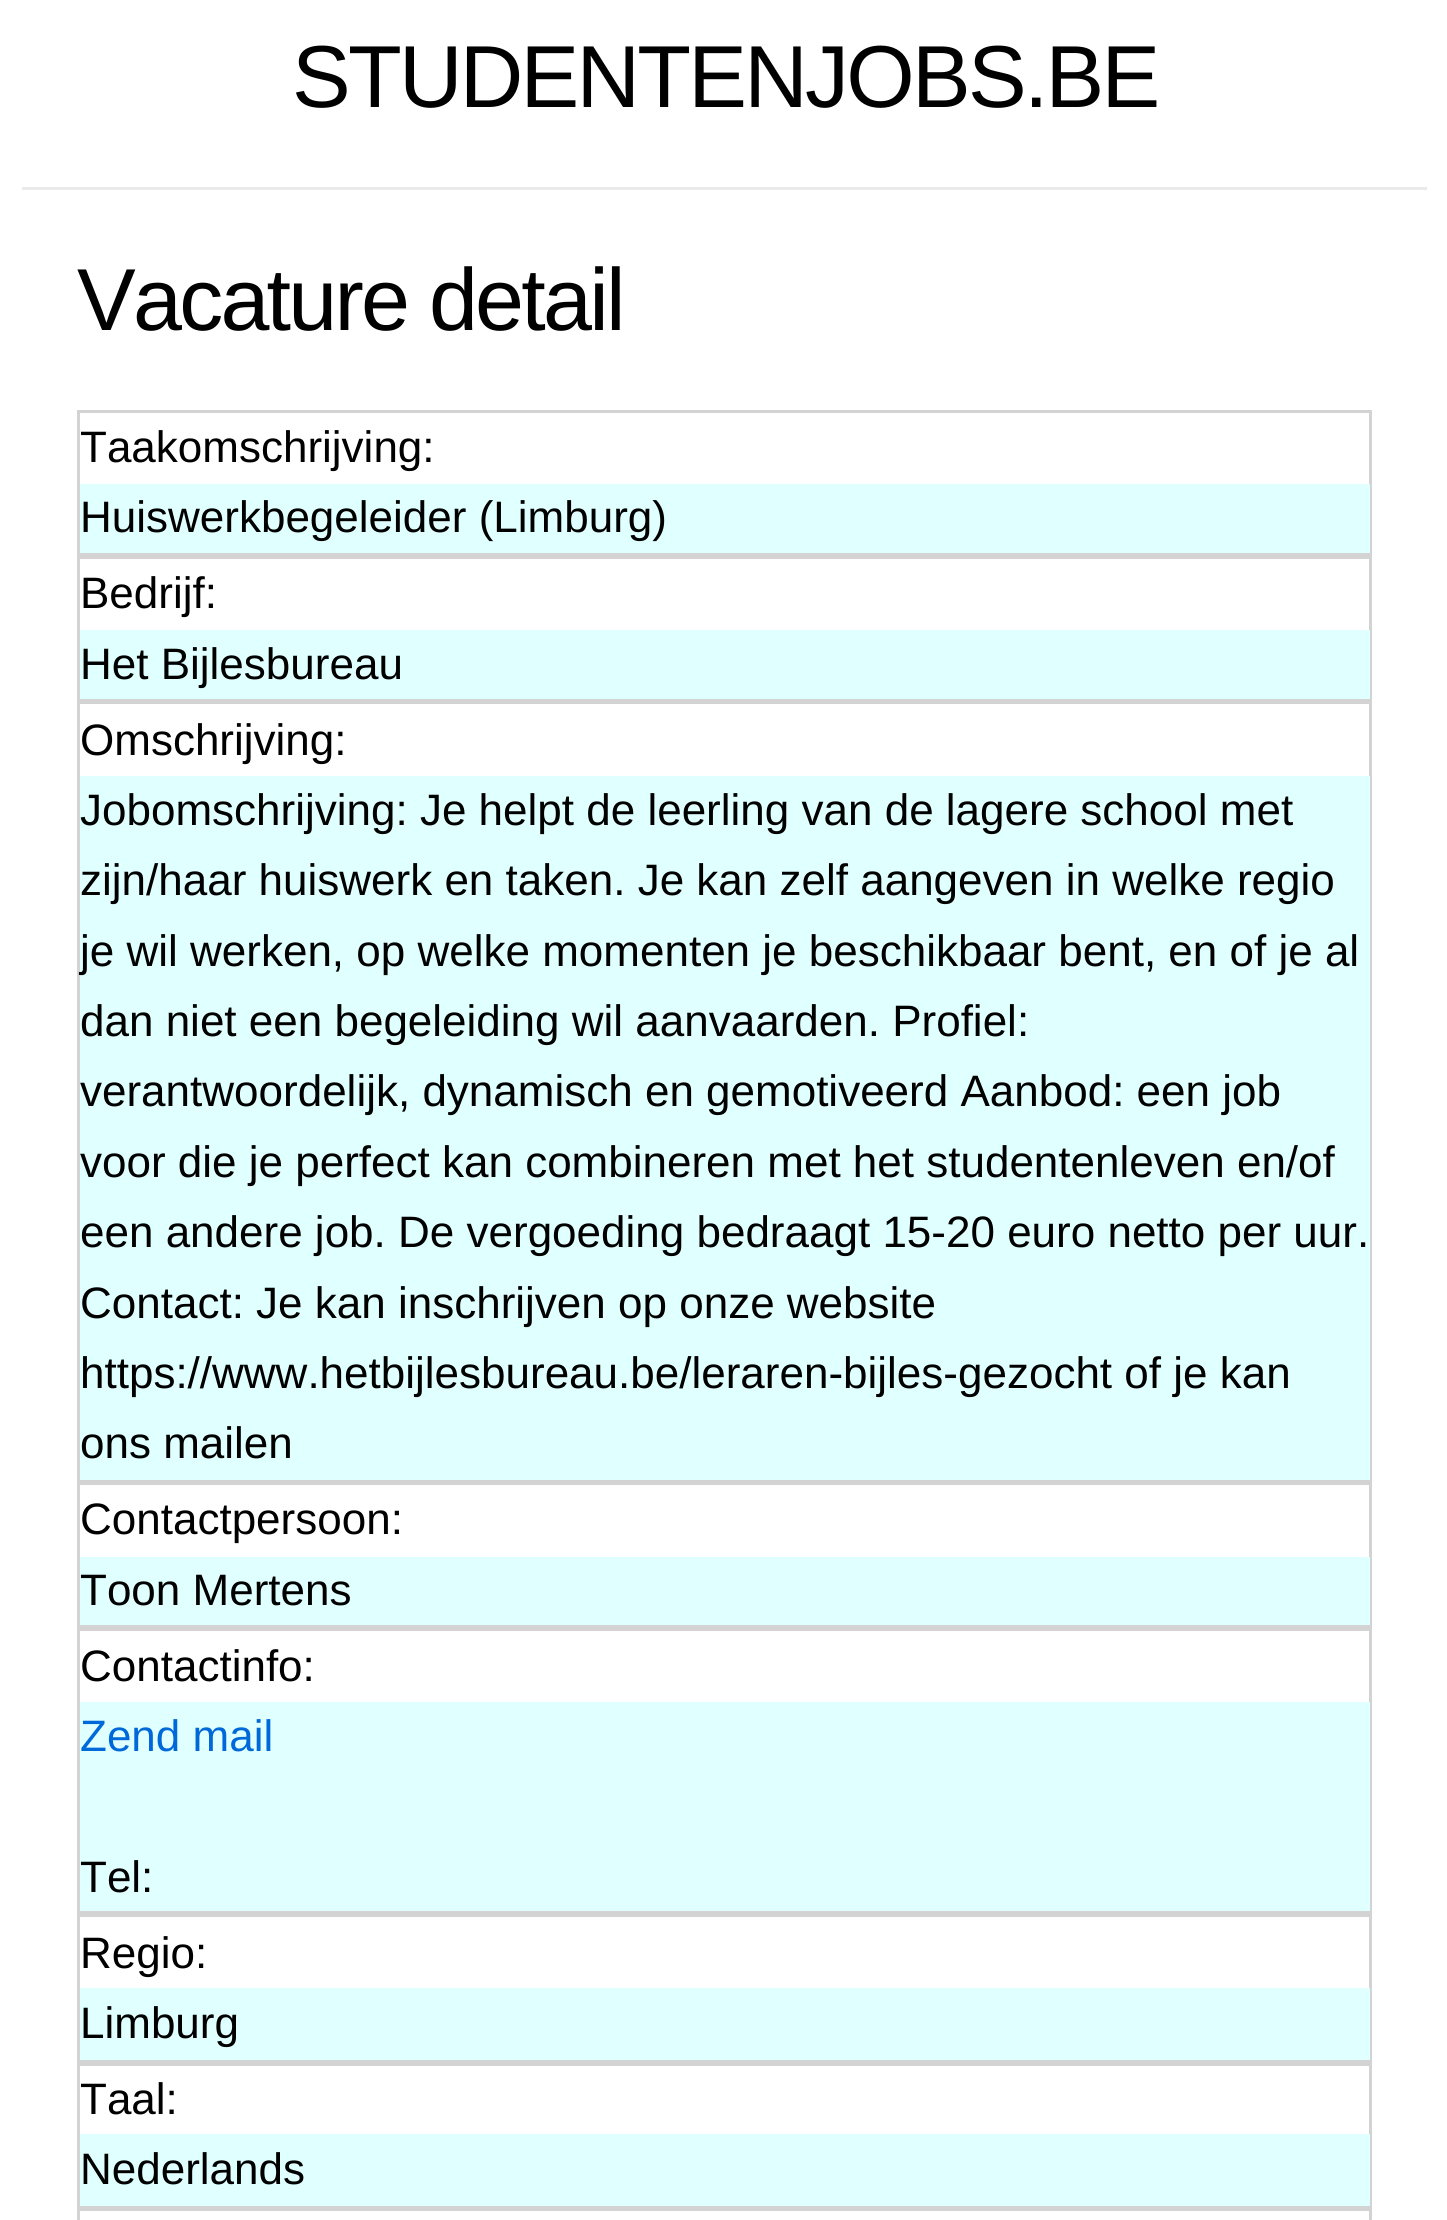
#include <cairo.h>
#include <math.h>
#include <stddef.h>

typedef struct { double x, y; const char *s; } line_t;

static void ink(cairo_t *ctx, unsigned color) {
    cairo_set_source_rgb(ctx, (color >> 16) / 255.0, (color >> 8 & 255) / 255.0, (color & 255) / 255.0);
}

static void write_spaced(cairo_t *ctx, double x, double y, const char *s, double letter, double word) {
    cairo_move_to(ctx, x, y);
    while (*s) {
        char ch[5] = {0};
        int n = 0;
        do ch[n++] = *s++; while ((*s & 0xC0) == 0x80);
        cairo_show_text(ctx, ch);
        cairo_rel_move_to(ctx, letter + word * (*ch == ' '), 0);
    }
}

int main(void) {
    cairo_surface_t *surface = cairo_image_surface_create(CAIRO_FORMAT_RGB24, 1447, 2220);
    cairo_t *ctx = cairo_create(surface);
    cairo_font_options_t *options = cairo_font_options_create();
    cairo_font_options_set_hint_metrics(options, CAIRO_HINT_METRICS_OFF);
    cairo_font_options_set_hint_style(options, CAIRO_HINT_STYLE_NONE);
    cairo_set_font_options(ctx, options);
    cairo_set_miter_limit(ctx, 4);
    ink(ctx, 0xFFFFFF);
    cairo_paint(ctx);
    ink(ctx, 0xEAEAEA);
    cairo_rectangle(ctx, 22, 187, 1405, 3);
    cairo_fill(ctx);
    cairo_select_font_face(ctx, "Liberation Sans", CAIRO_FONT_SLANT_NORMAL, CAIRO_FONT_WEIGHT_NORMAL);
    cairo_set_font_size(ctx, 88);
    ink(ctx, 0x000000);
    write_spaced(ctx, 292, 107, "STUDENTENJOBS.BE", -2.75, 0);
    write_spaced(ctx, 77, 330, "Vacature detail", -2.75, 0);
    cairo_rectangle(ctx, 78.5, 411.5, 1292, 143);
    ink(ctx, 0xD3D3D3);
    cairo_set_line_width(ctx, 3);
    cairo_stroke(ctx);
    cairo_set_font_size(ctx, 44);
    ink(ctx, 0x000000);
    cairo_move_to(ctx, 80, 462);
    cairo_show_text(ctx, "Taakomschrijving:");
    ink(ctx, 0xE0FFFF);
    cairo_rectangle(ctx, 80, 484, 1290, 69);
    cairo_fill(ctx);
    ink(ctx, 0x000000);
    cairo_move_to(ctx, 80, 532);
    cairo_show_text(ctx, "Huiswerkbegeleider (Limburg)");
    cairo_rectangle(ctx, 78.5, 557.5, 1292, 142);
    ink(ctx, 0xD3D3D3);
    cairo_stroke(ctx);
    ink(ctx, 0x000000);
    cairo_move_to(ctx, 80, 608);
    cairo_show_text(ctx, "Bedrijf:");
    ink(ctx, 0xE0FFFF);
    cairo_rectangle(ctx, 80, 630, 1290, 69);
    cairo_fill(ctx);
    ink(ctx, 0x000000);
    cairo_move_to(ctx, 80, 679);
    cairo_show_text(ctx, "Het Bijlesbureau");
    cairo_rectangle(ctx, 78.5, 702.5, 1292, 778);
    ink(ctx, 0xD3D3D3);
    cairo_stroke(ctx);
    ink(ctx, 0x000000);
    cairo_move_to(ctx, 80, 755);
    cairo_show_text(ctx, "Omschrijving:");
    ink(ctx, 0xE0FFFF);
    cairo_rectangle(ctx, 80, 776, 1290, 704);
    cairo_fill(ctx);
    ink(ctx, 0x000000);
    {
        static const line_t items[] = {
            {80, 825, "Jobomschrijving: Je helpt de leerling van de lagere school met"},
            {80, 895, "zijn/haar huiswerk en taken. Je kan zelf aangeven in welke regio"},
            {80, 966, "je wil werken, op welke momenten je beschikbaar bent, en of je al"},
            {80, 1036, "dan niet een begeleiding wil aanvaarden. Profiel:"},
            {80, 1106, "verantwoordelijk, dynamisch en gemotiveerd Aanbod: een job"},
            {80, 1177, "voor die je perfect kan combineren met het studentenleven en/of"},
            {80, 1247, "een andere job. De vergoeding bedraagt 15-20 euro netto per uur."},
            {80, 1318, "Contact: Je kan inschrijven op onze website"},
            {80, 1388, "https://www.hetbijlesbureau.be/leraren-bijles-gezocht of je kan"},
            {80, 1458, "ons mailen"},
        };
        for (size_t i = 0; i < sizeof items / sizeof *items; i++) {
            cairo_move_to(ctx, items[i].x, items[i].y);
            cairo_show_text(ctx, items[i].s);
        }
    }
    cairo_rectangle(ctx, 78.5, 1483.5, 1292, 143);
    ink(ctx, 0xD3D3D3);
    cairo_stroke(ctx);
    ink(ctx, 0x000000);
    cairo_move_to(ctx, 80, 1534);
    cairo_show_text(ctx, "Contactpersoon:");
    ink(ctx, 0xE0FFFF);
    cairo_rectangle(ctx, 80, 1557, 1290, 68);
    cairo_fill(ctx);
    ink(ctx, 0x000000);
    cairo_move_to(ctx, 80, 1605);
    cairo_show_text(ctx, "Toon Mertens");
    cairo_rectangle(ctx, 78.5, 1629.5, 1292, 283);
    ink(ctx, 0xD3D3D3);
    cairo_stroke(ctx);
    ink(ctx, 0x000000);
    cairo_move_to(ctx, 80, 1681);
    cairo_show_text(ctx, "Contactinfo:");
    ink(ctx, 0xE0FFFF);
    cairo_rectangle(ctx, 80, 1702, 1290, 209);
    cairo_fill(ctx);
    ink(ctx, 0x0069D9);
    cairo_move_to(ctx, 80, 1751);
    cairo_show_text(ctx, "Zend mail");
    ink(ctx, 0x000000);
    cairo_move_to(ctx, 80, 1892);
    cairo_show_text(ctx, "Tel:");
    cairo_rectangle(ctx, 78.5, 1915.5, 1292, 146);
    ink(ctx, 0xD3D3D3);
    cairo_stroke(ctx);
    ink(ctx, 0x000000);
    cairo_move_to(ctx, 80, 1968);
    cairo_show_text(ctx, "Regio:");
    ink(ctx, 0xE0FFFF);
    cairo_rectangle(ctx, 80, 1988, 1290, 72);
    cairo_fill(ctx);
    ink(ctx, 0x000000);
    cairo_move_to(ctx, 80, 2038);
    cairo_show_text(ctx, "Limburg");
    cairo_rectangle(ctx, 78.5, 2064.5, 1292, 142);
    ink(ctx, 0xD3D3D3);
    cairo_stroke(ctx);
    ink(ctx, 0x000000);
    cairo_move_to(ctx, 80, 2114);
    cairo_show_text(ctx, "Taal:");
    ink(ctx, 0xE0FFFF);
    cairo_rectangle(ctx, 80, 2134, 1290, 72);
    cairo_fill(ctx);
    ink(ctx, 0x000000);
    cairo_move_to(ctx, 80, 2184);
    cairo_show_text(ctx, "Nederlands");
    cairo_rectangle(ctx, 78.5, 2209.5, 1292, 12);
    ink(ctx, 0xD3D3D3);
    cairo_stroke(ctx);
    cairo_surface_write_to_png(surface, "image.png");
    cairo_font_options_destroy(options);
    cairo_destroy(ctx);
    cairo_surface_destroy(surface);
    return 0;
}
